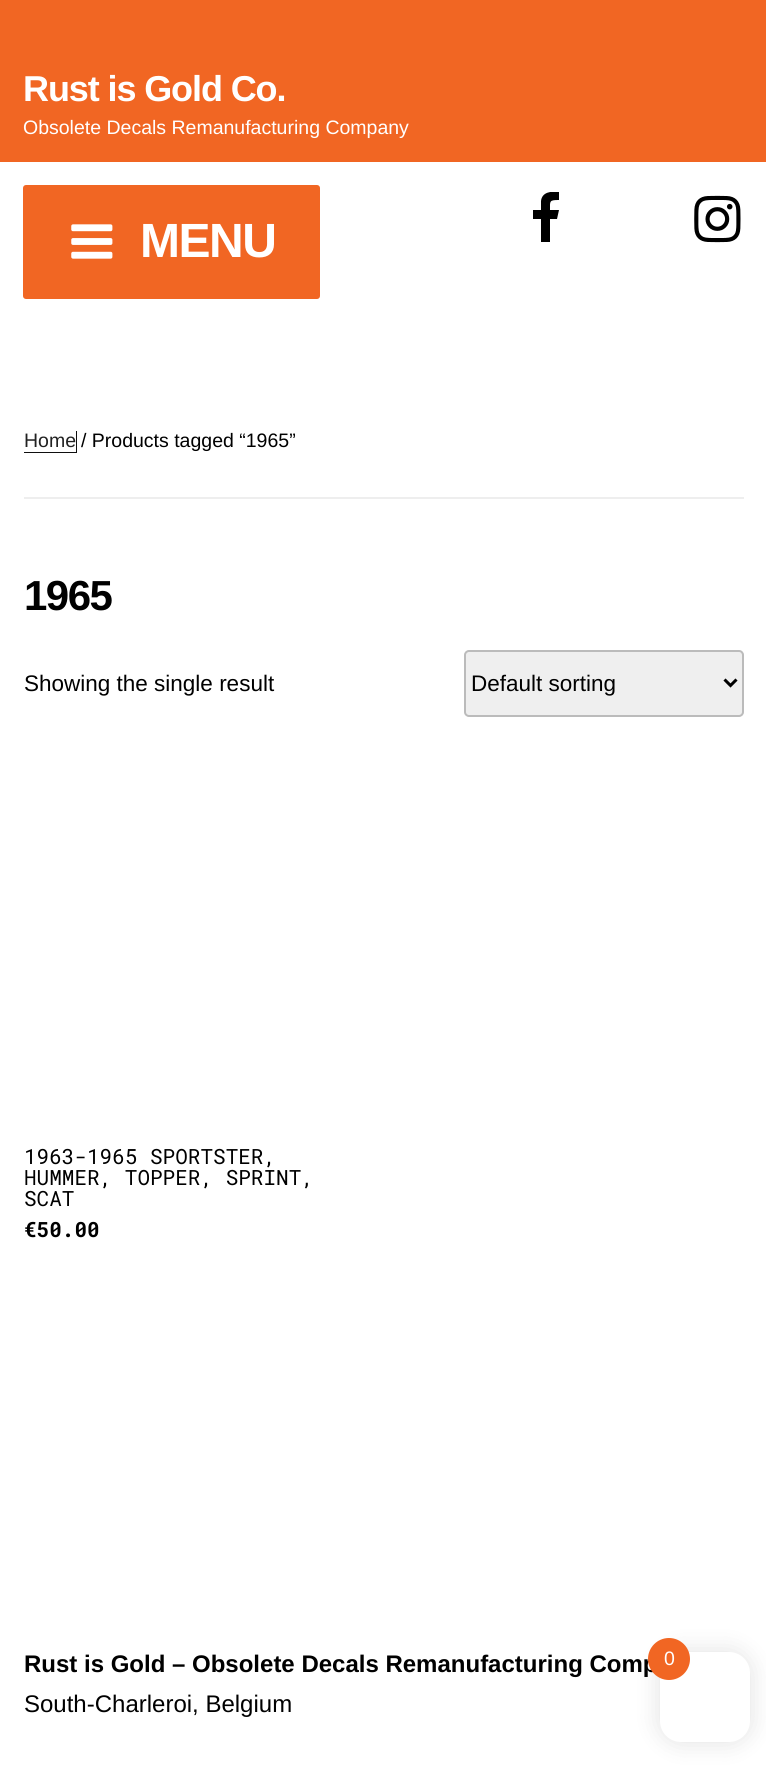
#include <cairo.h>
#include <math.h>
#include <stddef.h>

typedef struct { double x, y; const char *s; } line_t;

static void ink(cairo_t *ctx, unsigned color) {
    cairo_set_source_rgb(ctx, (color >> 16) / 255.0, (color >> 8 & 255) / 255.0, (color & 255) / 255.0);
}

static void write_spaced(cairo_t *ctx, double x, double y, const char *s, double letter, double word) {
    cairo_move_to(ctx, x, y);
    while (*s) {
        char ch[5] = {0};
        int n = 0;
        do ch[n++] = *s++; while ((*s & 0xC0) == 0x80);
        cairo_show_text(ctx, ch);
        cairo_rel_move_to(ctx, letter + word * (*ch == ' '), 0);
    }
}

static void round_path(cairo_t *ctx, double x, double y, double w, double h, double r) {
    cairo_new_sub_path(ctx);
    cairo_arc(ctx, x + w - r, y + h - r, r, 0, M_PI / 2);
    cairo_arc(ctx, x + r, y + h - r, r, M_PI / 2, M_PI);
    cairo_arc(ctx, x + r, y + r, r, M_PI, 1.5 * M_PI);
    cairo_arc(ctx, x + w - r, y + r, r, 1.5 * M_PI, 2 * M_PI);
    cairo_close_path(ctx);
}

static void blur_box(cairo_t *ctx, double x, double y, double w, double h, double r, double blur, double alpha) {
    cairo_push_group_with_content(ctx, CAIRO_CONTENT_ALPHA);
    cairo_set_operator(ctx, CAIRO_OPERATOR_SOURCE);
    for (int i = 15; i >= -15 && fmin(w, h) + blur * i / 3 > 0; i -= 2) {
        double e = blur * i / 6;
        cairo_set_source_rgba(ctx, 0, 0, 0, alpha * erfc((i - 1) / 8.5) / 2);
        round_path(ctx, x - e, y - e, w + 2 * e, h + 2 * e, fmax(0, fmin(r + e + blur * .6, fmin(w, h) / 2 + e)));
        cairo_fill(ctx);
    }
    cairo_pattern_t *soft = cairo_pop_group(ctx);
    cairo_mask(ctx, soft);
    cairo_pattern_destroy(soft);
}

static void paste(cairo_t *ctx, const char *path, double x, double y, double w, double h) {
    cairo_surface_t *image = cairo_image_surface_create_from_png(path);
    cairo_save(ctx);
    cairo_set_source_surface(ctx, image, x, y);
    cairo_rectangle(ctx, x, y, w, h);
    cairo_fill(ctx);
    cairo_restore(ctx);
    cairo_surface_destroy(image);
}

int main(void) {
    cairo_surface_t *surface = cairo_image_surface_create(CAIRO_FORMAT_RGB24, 766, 1774);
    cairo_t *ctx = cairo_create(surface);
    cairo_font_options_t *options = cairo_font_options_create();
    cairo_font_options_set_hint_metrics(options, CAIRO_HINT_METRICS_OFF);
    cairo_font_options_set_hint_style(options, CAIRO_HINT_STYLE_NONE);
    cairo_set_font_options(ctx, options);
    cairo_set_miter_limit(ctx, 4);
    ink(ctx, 0xFFFFFF);
    cairo_paint(ctx);
    ink(ctx, 0xF16623);
    cairo_rectangle(ctx, 0, 0, 766, 162);
    cairo_fill(ctx);
    cairo_select_font_face(ctx, "Liberation Sans", CAIRO_FONT_SLANT_NORMAL, CAIRO_FONT_WEIGHT_BOLD);
    cairo_set_font_size(ctx, 36);
    ink(ctx, 0xFFFFFF);
    write_spaced(ctx, 23, 101, "Rust is Gold Co.", -1.1, 0);
    cairo_select_font_face(ctx, "Liberation Sans", CAIRO_FONT_SLANT_NORMAL, CAIRO_FONT_WEIGHT_NORMAL);
    cairo_set_font_size(ctx, 19.5);
    cairo_move_to(ctx, 23, 134);
    cairo_show_text(ctx, "Obsolete Decals Remanufacturing Company");
    ink(ctx, 0xF16623);
    round_path(ctx, 23, 185, 297, 114, 3);
    cairo_fill(ctx);
    paste(ctx, "media/1.png", 71, 224, 42, 35);
    cairo_select_font_face(ctx, "Liberation Sans", CAIRO_FONT_SLANT_NORMAL, CAIRO_FONT_WEIGHT_BOLD);
    cairo_set_font_size(ctx, 48);
    ink(ctx, 0xFFFFFF);
    write_spaced(ctx, 140, 257, "MENU", -1.5, 0);
    cairo_save(ctx);
    cairo_rectangle(ctx, 519, 192, 54, 54);
    cairo_clip(ctx);
    ink(ctx, 0x000000);
    cairo_new_path(ctx);
    cairo_move_to(ctx, 559, 192);
    cairo_line_to(ctx, 559, 200);
    cairo_curve_to(ctx, 549, 200, 550, 201, 550, 210);
    cairo_line_to(ctx, 559, 210);
    cairo_line_to(ctx, 557, 219);
    cairo_line_to(ctx, 550, 219);
    cairo_line_to(ctx, 550, 242);
    cairo_line_to(ctx, 541, 242);
    cairo_line_to(ctx, 541, 219);
    cairo_line_to(ctx, 533, 219);
    cairo_line_to(ctx, 533, 210);
    cairo_line_to(ctx, 541, 210);
    cairo_line_to(ctx, 541, 201);
    cairo_curve_to(ctx, 542, 192, 551, 191, 559, 192);
    cairo_close_path(ctx);
    cairo_fill(ctx);
    cairo_restore(ctx);
    paste(ctx, "media/2.png", 694, 195, 47, 48);
    ink(ctx, 0xEEEEEE);
    cairo_rectangle(ctx, 24, 497, 720, 2);
    cairo_fill(ctx);
    ink(ctx, 0x0F0F0F);
    cairo_new_path(ctx);
    cairo_move_to(ctx, 24, 452);
    cairo_line_to(ctx, 24, 453);
    cairo_line_to(ctx, 77, 453);
    cairo_line_to(ctx, 77, 431);
    cairo_line_to(ctx, 76, 431);
    cairo_line_to(ctx, 76, 452);
    cairo_close_path(ctx);
    cairo_fill(ctx);
    cairo_select_font_face(ctx, "Liberation Sans", CAIRO_FONT_SLANT_NORMAL, CAIRO_FONT_WEIGHT_NORMAL);
    cairo_set_font_size(ctx, 19.5);
    ink(ctx, 0x222222);
    cairo_move_to(ctx, 24, 447);
    cairo_show_text(ctx, "Home");
    ink(ctx, 0x000000);
    cairo_move_to(ctx, 81, 447);
    cairo_show_text(ctx, "/ Products tagged “1965”");
    cairo_select_font_face(ctx, "Liberation Sans", CAIRO_FONT_SLANT_NORMAL, CAIRO_FONT_WEIGHT_BOLD);
    cairo_set_font_size(ctx, 42);
    write_spaced(ctx, 24, 610, "1965", -1.5, 0);
    cairo_select_font_face(ctx, "Liberation Sans", CAIRO_FONT_SLANT_NORMAL, CAIRO_FONT_WEIGHT_NORMAL);
    cairo_set_font_size(ctx, 22.5);
    cairo_move_to(ctx, 24, 691);
    cairo_show_text(ctx, "Showing the single result");
    ink(ctx, 0xEFEFEF);
    round_path(ctx, 465, 651, 278, 65, 4);
    cairo_fill_preserve(ctx);
    ink(ctx, 0xBBBBBB);
    cairo_stroke(ctx);
    cairo_new_path(ctx);
    cairo_move_to(ctx, 724.5, 679.5);
    cairo_line_to(ctx, 730.5, 685.5);
    cairo_line_to(ctx, 736.5, 679.5);
    ink(ctx, 0x000000);
    cairo_set_line_width(ctx, 3);
    cairo_stroke(ctx);
    cairo_move_to(ctx, 471, 691);
    cairo_show_text(ctx, "Default sorting");
    cairo_select_font_face(ctx, "Roboto Mono", CAIRO_FONT_SLANT_NORMAL, CAIRO_FONT_WEIGHT_NORMAL);
    cairo_set_font_size(ctx, 21);
    {
        static const line_t items[] = {
            {24, 1164, "1963-1965 SPORTSTER,"},
            {24, 1185, "HUMMER, TOPPER, SPRINT,"},
            {24, 1206, "SCAT"},
        };
        for (size_t i = 0; i < sizeof items / sizeof *items; i++) {
            cairo_move_to(ctx, items[i].x, items[i].y);
            cairo_show_text(ctx, items[i].s);
        }
    }
    cairo_select_font_face(ctx, "Roboto Mono", CAIRO_FONT_SLANT_NORMAL, CAIRO_FONT_WEIGHT_BOLD);
    cairo_move_to(ctx, 24, 1237);
    cairo_show_text(ctx, "€50.00");
    cairo_select_font_face(ctx, "Liberation Sans", CAIRO_FONT_SLANT_NORMAL, CAIRO_FONT_WEIGHT_BOLD);
    cairo_set_font_size(ctx, 24);
    cairo_move_to(ctx, 24, 1672);
    cairo_show_text(ctx, "Rust is Gold – Obsolete Decals Remanufacturing Comp");
    cairo_select_font_face(ctx, "Liberation Sans", CAIRO_FONT_SLANT_NORMAL, CAIRO_FONT_WEIGHT_NORMAL);
    cairo_move_to(ctx, 24, 1712);
    cairo_show_text(ctx, "South-Charleroi, Belgium");
    ink(ctx, 0x000000);
    blur_box(ctx, 657, 1649, 96, 96, 24, 11, 0.1);
    ink(ctx, 0xFFFFFF);
    round_path(ctx, 660, 1652, 90, 90, 21);
    cairo_fill(ctx);
    ink(ctx, 0xF16623);
    cairo_arc(ctx, 669, 1659, 21, 0, 2 * M_PI);
    cairo_fill(ctx);
    cairo_set_font_size(ctx, 19.5);
    ink(ctx, 0xFFFFFF);
    cairo_move_to(ctx, 664, 1665);
    cairo_show_text(ctx, "0");
    cairo_surface_write_to_png(surface, "image.png");
    cairo_font_options_destroy(options);
    cairo_destroy(ctx);
    cairo_surface_destroy(surface);
    return 0;
}
